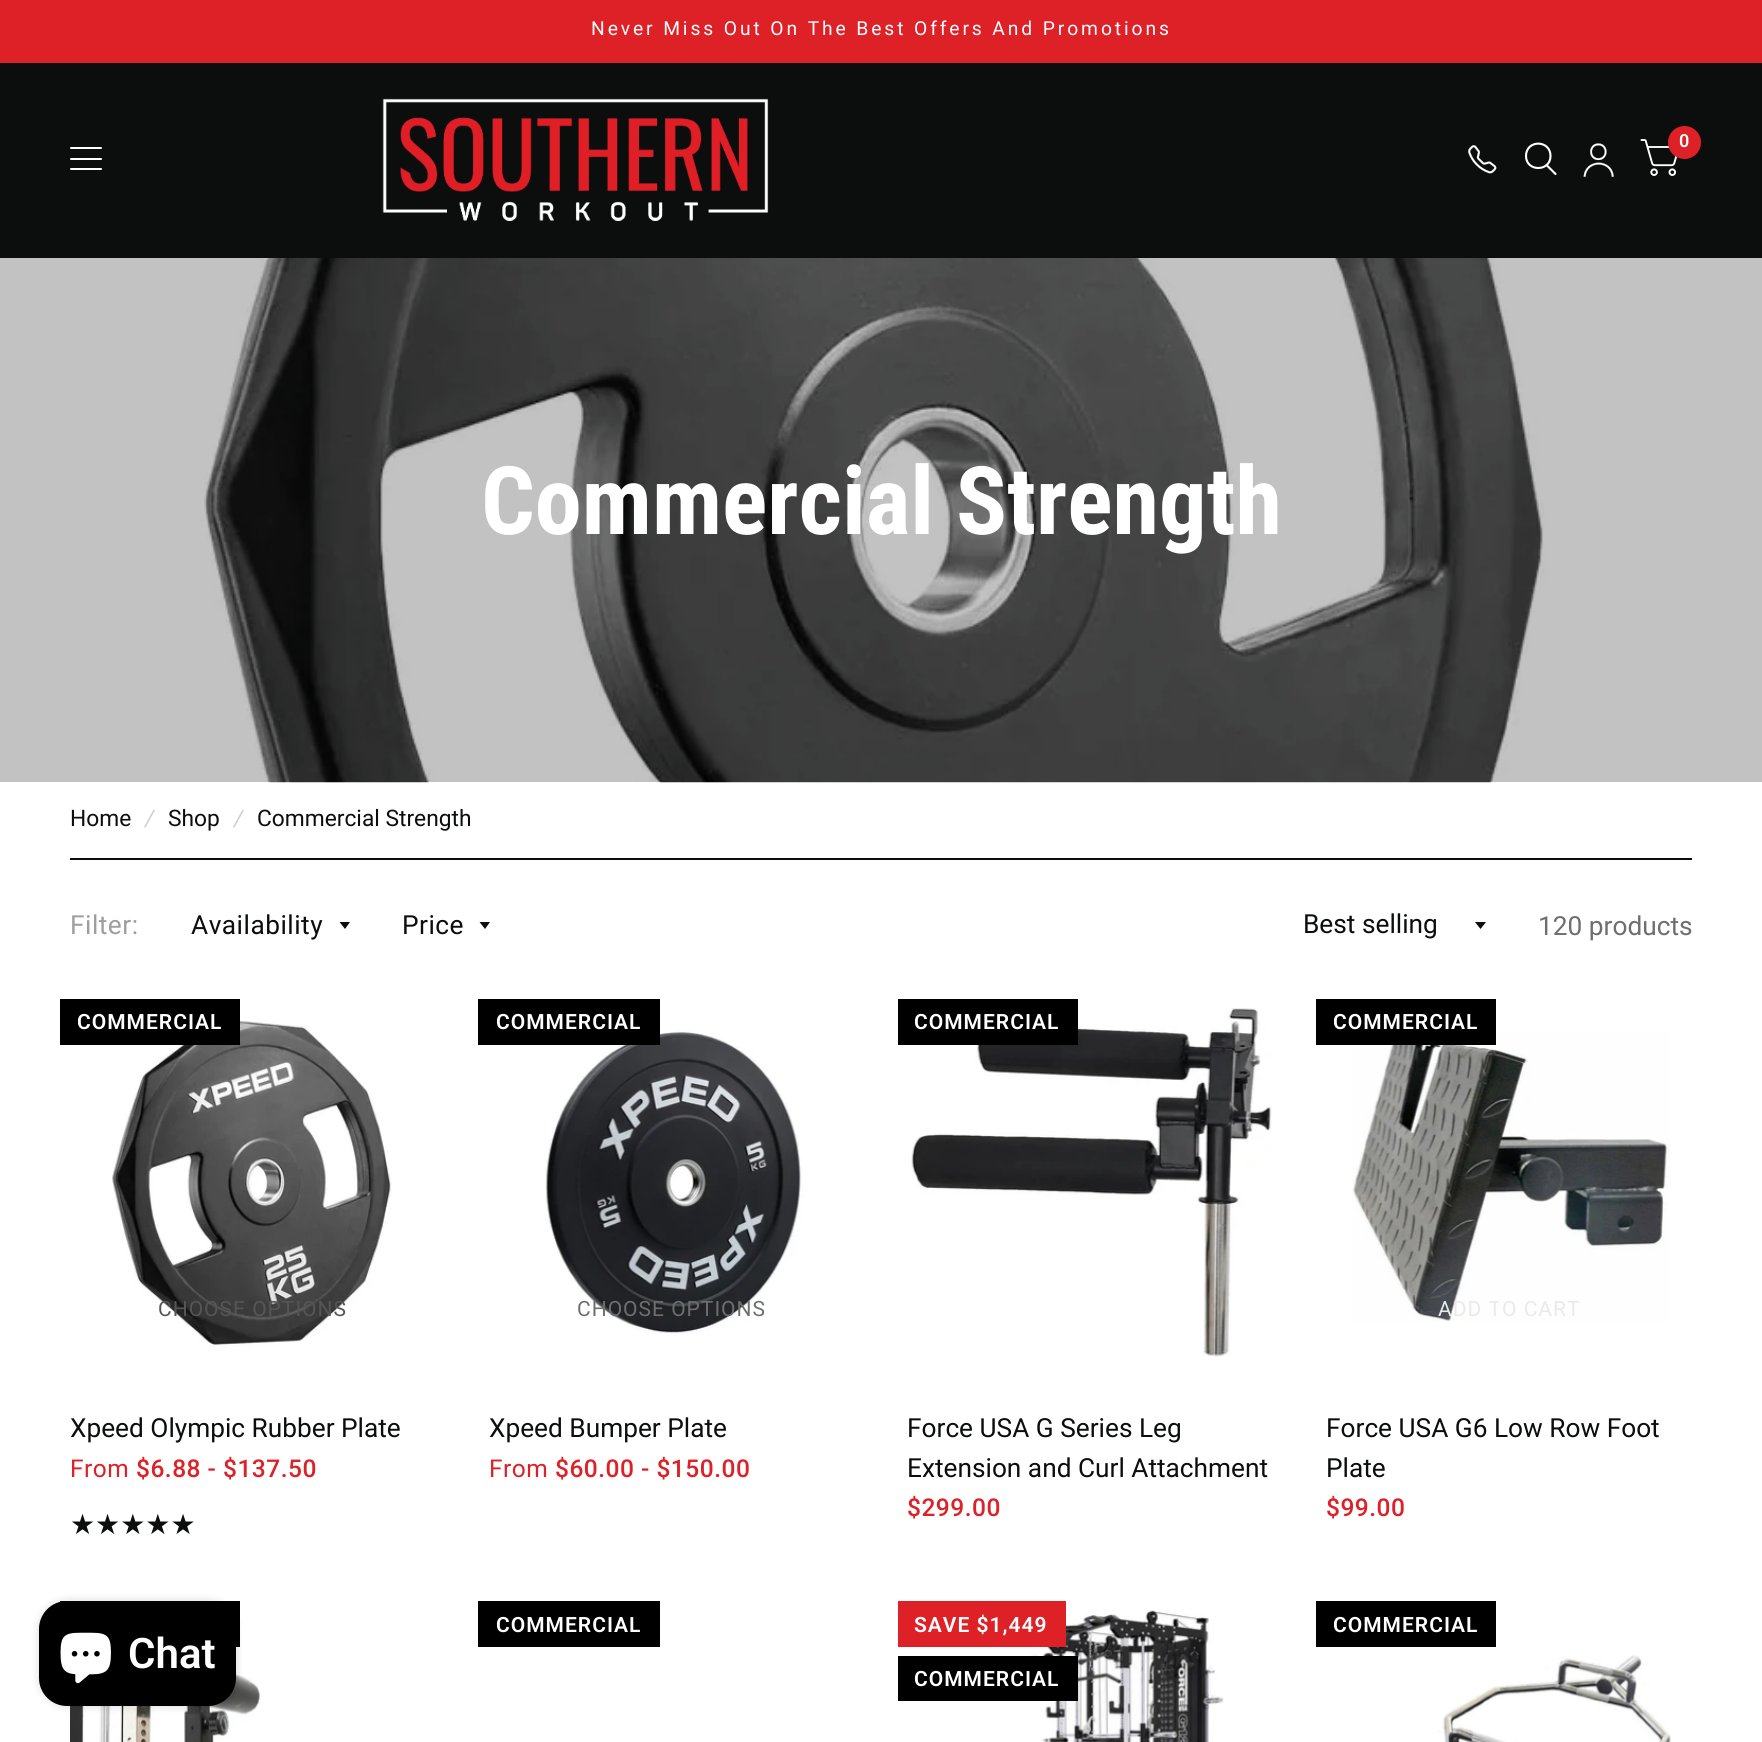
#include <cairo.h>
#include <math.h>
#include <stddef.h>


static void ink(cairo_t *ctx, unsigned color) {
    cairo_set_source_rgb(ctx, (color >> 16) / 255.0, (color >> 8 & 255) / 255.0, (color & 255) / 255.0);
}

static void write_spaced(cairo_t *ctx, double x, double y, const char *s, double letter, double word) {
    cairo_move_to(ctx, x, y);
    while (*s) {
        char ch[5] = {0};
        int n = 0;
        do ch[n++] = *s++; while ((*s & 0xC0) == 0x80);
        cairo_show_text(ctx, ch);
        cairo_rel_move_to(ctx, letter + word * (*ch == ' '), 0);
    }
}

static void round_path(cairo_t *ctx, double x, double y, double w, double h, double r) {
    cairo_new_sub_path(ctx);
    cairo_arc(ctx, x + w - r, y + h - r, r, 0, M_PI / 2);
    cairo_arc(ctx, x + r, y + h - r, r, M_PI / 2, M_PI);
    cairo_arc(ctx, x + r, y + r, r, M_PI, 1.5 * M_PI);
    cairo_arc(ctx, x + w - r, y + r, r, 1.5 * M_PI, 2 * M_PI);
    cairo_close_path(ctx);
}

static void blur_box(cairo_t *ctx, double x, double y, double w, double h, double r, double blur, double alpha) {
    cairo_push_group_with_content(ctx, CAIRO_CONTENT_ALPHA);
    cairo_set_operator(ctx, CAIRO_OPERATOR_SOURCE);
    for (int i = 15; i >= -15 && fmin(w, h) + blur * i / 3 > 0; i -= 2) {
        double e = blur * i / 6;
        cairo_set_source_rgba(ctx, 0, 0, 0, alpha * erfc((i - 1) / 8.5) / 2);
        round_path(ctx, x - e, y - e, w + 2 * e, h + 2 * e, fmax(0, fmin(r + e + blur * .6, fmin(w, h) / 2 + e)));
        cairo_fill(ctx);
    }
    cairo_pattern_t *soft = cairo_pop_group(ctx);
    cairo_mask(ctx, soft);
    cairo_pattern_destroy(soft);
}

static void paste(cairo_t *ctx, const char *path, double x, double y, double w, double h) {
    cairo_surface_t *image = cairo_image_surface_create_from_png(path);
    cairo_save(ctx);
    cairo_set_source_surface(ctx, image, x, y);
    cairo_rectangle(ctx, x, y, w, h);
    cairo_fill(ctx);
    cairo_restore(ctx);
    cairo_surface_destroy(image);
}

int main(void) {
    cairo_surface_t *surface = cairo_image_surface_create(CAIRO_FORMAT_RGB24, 1762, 1742);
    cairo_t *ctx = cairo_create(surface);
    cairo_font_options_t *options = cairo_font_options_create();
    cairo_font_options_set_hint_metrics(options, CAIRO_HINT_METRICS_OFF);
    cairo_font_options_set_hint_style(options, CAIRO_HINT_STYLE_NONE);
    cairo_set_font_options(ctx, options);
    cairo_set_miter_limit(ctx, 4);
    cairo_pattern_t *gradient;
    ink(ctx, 0xFFFFFF);
    cairo_paint(ctx);
    ink(ctx, 0xDE2027);
    cairo_rectangle(ctx, 0, 0, 1762, 63);
    cairo_fill(ctx);
    cairo_select_font_face(ctx, "Roboto", CAIRO_FONT_SLANT_NORMAL, CAIRO_FONT_WEIGHT_NORMAL);
    cairo_set_font_size(ctx, 19.25);
    ink(ctx, 0xFFFFFF);
    write_spaced(ctx, 591, 35, "Never Miss Out On The Best Offers And Promotions", 2.9, 0);
    ink(ctx, 0x0C0D0D);
    cairo_rectangle(ctx, 0, 63, 1762, 195);
    cairo_fill(ctx);
    paste(ctx, "media/1.png", 382, 98, 387, 123);
    paste(ctx, "media/2.png", 1468, 145, 29, 29);
    cairo_new_path(ctx);
    cairo_move_to(ctx, 1547, 165.5);
    cairo_line_to(ctx, 1555.5, 174);
    cairo_move_to(ctx, 1550.5, 156);
    cairo_curve_to(ctx, 1550.5, 172, 1526, 172, 1526, 156);
    cairo_curve_to(ctx, 1526, 139.5, 1550.5, 139.5, 1550.5, 156);
    cairo_close_path(ctx);
    ink(ctx, 0xFFFFFF);
    cairo_set_line_width(ctx, 2.1);
    cairo_set_line_cap(ctx, CAIRO_LINE_CAP_ROUND);
    cairo_set_line_join(ctx, CAIRO_LINE_JOIN_ROUND);
    cairo_stroke(ctx);
    paste(ctx, "media/3.png", 1583, 143, 31, 34);
    paste(ctx, "media/4.png", 1640, 139, 37, 37);
    ink(ctx, 0xDE2027);
    cairo_arc(ctx, 1684.5, 142.5, 16.5, 0, 2 * M_PI);
    cairo_fill(ctx);
    cairo_select_font_face(ctx, "Roboto SemiBold", CAIRO_FONT_SLANT_NORMAL, CAIRO_FONT_WEIGHT_NORMAL);
    cairo_set_font_size(ctx, 18);
    ink(ctx, 0xFFFFFF);
    cairo_move_to(ctx, 1679, 147);
    cairo_show_text(ctx, "0");
    round_path(ctx, 70, 147, 32, 2, 1);
    cairo_fill(ctx);
    round_path(ctx, 70, 158, 32, 2, 1);
    cairo_fill(ctx);
    round_path(ctx, 70, 168, 32, 2, 1);
    cairo_fill(ctx);
    paste(ctx, "media/5.png", 0, 258, 1762, 525);
    cairo_select_font_face(ctx, "Roboto Condensed", CAIRO_FONT_SLANT_NORMAL, CAIRO_FONT_WEIGHT_BOLD);
    cairo_set_font_size(ctx, 94.5);
    cairo_move_to(ctx, 481, 534);
    cairo_show_text(ctx, "Commercial Strength");
    cairo_select_font_face(ctx, "Roboto", CAIRO_FONT_SLANT_NORMAL, CAIRO_FONT_WEIGHT_NORMAL);
    cairo_set_font_size(ctx, 22.75);
    ink(ctx, 0x0C0D0D);
    cairo_move_to(ctx, 70, 826);
    cairo_show_text(ctx, "Home");
    cairo_select_font_face(ctx, "Roboto", CAIRO_FONT_SLANT_ITALIC, CAIRO_FONT_WEIGHT_NORMAL);
    ink(ctx, 0xCECFCF);
    cairo_move_to(ctx, 145, 826);
    cairo_show_text(ctx, "/");
    cairo_select_font_face(ctx, "Roboto", CAIRO_FONT_SLANT_NORMAL, CAIRO_FONT_WEIGHT_NORMAL);
    ink(ctx, 0x0C0D0D);
    cairo_move_to(ctx, 168, 826);
    cairo_show_text(ctx, "Shop");
    cairo_select_font_face(ctx, "Roboto", CAIRO_FONT_SLANT_ITALIC, CAIRO_FONT_WEIGHT_NORMAL);
    ink(ctx, 0xCECFCF);
    cairo_move_to(ctx, 234, 826);
    cairo_show_text(ctx, "/");
    cairo_select_font_face(ctx, "Roboto", CAIRO_FONT_SLANT_NORMAL, CAIRO_FONT_WEIGHT_NORMAL);
    ink(ctx, 0x0C0D0D);
    cairo_move_to(ctx, 257, 826);
    cairo_show_text(ctx, "Commercial Strength");
    cairo_rectangle(ctx, 70, 858, 1622, 2);
    cairo_fill(ctx);
    cairo_set_font_size(ctx, 26.25);
    ink(ctx, 0x9E9E9E);
    write_spaced(ctx, 70, 934, "Filter:", 0.5, 0);
    ink(ctx, 0x0C0D0D);
    write_spaced(ctx, 191, 934, "Availability", 0.5, 0);
    cairo_new_path(ctx);
    cairo_move_to(ctx, 339.5, 922);
    cairo_line_to(ctx, 350, 922);
    cairo_line_to(ctx, 345, 929);
    cairo_close_path(ctx);
    cairo_fill(ctx);
    write_spaced(ctx, 402, 934, "Price", 0.5, 0);
    cairo_new_path(ctx);
    cairo_move_to(ctx, 479.5, 922);
    cairo_line_to(ctx, 490, 922);
    cairo_line_to(ctx, 485, 929);
    cairo_close_path(ctx);
    cairo_fill(ctx);
    cairo_move_to(ctx, 1303, 933);
    cairo_show_text(ctx, "Best selling");
    cairo_new_path(ctx);
    cairo_move_to(ctx, 1475, 922);
    cairo_line_to(ctx, 1486, 922);
    cairo_line_to(ctx, 1480.5, 929);
    cairo_close_path(ctx);
    cairo_fill(ctx);
    ink(ctx, 0x6D6E6E);
    cairo_move_to(ctx, 1538, 935);
    cairo_show_text(ctx, "120 products");
    paste(ctx, "media/6.png", 112, 1017, 280, 330);
    ink(ctx, 0x000000);
    cairo_rectangle(ctx, 60, 999, 180, 46);
    cairo_fill(ctx);
    cairo_select_font_face(ctx, "Roboto SemiBold", CAIRO_FONT_SLANT_NORMAL, CAIRO_FONT_WEIGHT_NORMAL);
    cairo_set_font_size(ctx, 21);
    ink(ctx, 0xFFFFFF);
    write_spaced(ctx, 77, 1029, "COMMERCIAL", 1, 0);
    cairo_select_font_face(ctx, "Roboto", CAIRO_FONT_SLANT_NORMAL, CAIRO_FONT_WEIGHT_NORMAL);
    ink(ctx, 0x555555);
    write_spaced(ctx, 158, 1316, "CHOOSE OPTIONS", 1, 0);
    cairo_set_font_size(ctx, 26.25);
    ink(ctx, 0x0C0D0D);
    cairo_move_to(ctx, 70, 1437);
    cairo_show_text(ctx, "Xpeed Olympic Rubber Plate");
    cairo_set_font_size(ctx, 24.5);
    ink(ctx, 0xDE2027);
    write_spaced(ctx, 70, 1477, "From", 0.5, 0);
    cairo_select_font_face(ctx, "Roboto Medium", CAIRO_FONT_SLANT_NORMAL, CAIRO_FONT_WEIGHT_NORMAL);
    write_spaced(ctx, 136, 1477, "$6.88 - $137.50", 0.5, 0);
    cairo_select_font_face(ctx, "DejaVu Sans", CAIRO_FONT_SLANT_NORMAL, CAIRO_FONT_WEIGHT_NORMAL);
    cairo_set_font_size(ctx, 28);
    gradient = cairo_pattern_create_linear(70, 1524, 196, 1524);
    cairo_pattern_add_color_stop_rgba(gradient, 1, 0.047, 0.051, 0.051, 1);
    cairo_pattern_add_color_stop_rgba(gradient, 1, 0.882, 0.882, 0.882, 1);
    cairo_set_source(ctx, gradient);
    cairo_pattern_destroy(gradient);
    cairo_move_to(ctx, 70, 1534);
    cairo_show_text(ctx, "★★★★★");
    paste(ctx, "media/7.png", 545, 1029, 258, 305);
    ink(ctx, 0x000000);
    cairo_rectangle(ctx, 478, 999, 182, 46);
    cairo_fill(ctx);
    cairo_select_font_face(ctx, "Roboto SemiBold", CAIRO_FONT_SLANT_NORMAL, CAIRO_FONT_WEIGHT_NORMAL);
    cairo_set_font_size(ctx, 21);
    ink(ctx, 0xFFFFFF);
    write_spaced(ctx, 496, 1029, "COMMERCIAL", 1, 0);
    cairo_select_font_face(ctx, "Roboto", CAIRO_FONT_SLANT_NORMAL, CAIRO_FONT_WEIGHT_NORMAL);
    ink(ctx, 0x6D6E6E);
    write_spaced(ctx, 577, 1316, "CHOOSE OPTIONS", 1, 0);
    cairo_set_font_size(ctx, 26.25);
    ink(ctx, 0x0C0D0D);
    cairo_move_to(ctx, 489, 1437);
    cairo_show_text(ctx, "Xpeed Bumper Plate");
    cairo_set_font_size(ctx, 24.5);
    ink(ctx, 0xDE2027);
    write_spaced(ctx, 489, 1477, "From", 0.5, 0);
    cairo_select_font_face(ctx, "Roboto Medium", CAIRO_FONT_SLANT_NORMAL, CAIRO_FONT_WEIGHT_NORMAL);
    write_spaced(ctx, 555, 1477, "$60.00 - $150.00", 0.5, 0);
    paste(ctx, "media/8.png", 911, 1008, 361, 350);
    ink(ctx, 0x000000);
    cairo_rectangle(ctx, 898, 999, 180, 46);
    cairo_fill(ctx);
    cairo_select_font_face(ctx, "Roboto SemiBold", CAIRO_FONT_SLANT_NORMAL, CAIRO_FONT_WEIGHT_NORMAL);
    cairo_set_font_size(ctx, 21);
    ink(ctx, 0xFFFFFF);
    write_spaced(ctx, 914, 1029, "COMMERCIAL", 1, 0);
    cairo_select_font_face(ctx, "Roboto", CAIRO_FONT_SLANT_NORMAL, CAIRO_FONT_WEIGHT_NORMAL);
    cairo_set_font_size(ctx, 26.25);
    ink(ctx, 0x0C0D0D);
    cairo_move_to(ctx, 907, 1437);
    cairo_show_text(ctx, "Force USA G Series Leg");
    cairo_move_to(ctx, 907, 1477);
    cairo_show_text(ctx, "Extension and Curl Attachment");
    cairo_select_font_face(ctx, "Roboto Medium", CAIRO_FONT_SLANT_NORMAL, CAIRO_FONT_WEIGHT_NORMAL);
    cairo_set_font_size(ctx, 24.5);
    ink(ctx, 0xDE2027);
    write_spaced(ctx, 907, 1516, "$299.00", 0.5, 0);
    paste(ctx, "media/9.png", 1352, 1033, 318, 289);
    ink(ctx, 0x000000);
    cairo_rectangle(ctx, 1316, 999, 180, 46);
    cairo_fill(ctx);
    cairo_select_font_face(ctx, "Roboto SemiBold", CAIRO_FONT_SLANT_NORMAL, CAIRO_FONT_WEIGHT_NORMAL);
    cairo_set_font_size(ctx, 21);
    ink(ctx, 0xFFFFFF);
    write_spaced(ctx, 1333, 1029, "COMMERCIAL", 1, 0);
    cairo_select_font_face(ctx, "Roboto", CAIRO_FONT_SLANT_NORMAL, CAIRO_FONT_WEIGHT_NORMAL);
    ink(ctx, 0xE9EAEA);
    write_spaced(ctx, 1438, 1316, "ADD TO CART", 1, 0);
    cairo_new_path(ctx);
    cairo_move_to(ctx, 1508.5, 1298);
    cairo_curve_to(ctx, 1523, 1298, 1523, 1320, 1508.5, 1320);
    cairo_curve_to(ctx, 1494, 1320, 1494, 1298, 1508.5, 1298);
    ink(ctx, 0xFEFEFE);
    cairo_set_line_width(ctx, 2.2);
    cairo_set_line_cap(ctx, CAIRO_LINE_CAP_BUTT);
    cairo_set_line_join(ctx, CAIRO_LINE_JOIN_MITER);
    cairo_stroke(ctx);
    cairo_set_font_size(ctx, 26.25);
    ink(ctx, 0x0C0D0D);
    cairo_move_to(ctx, 1326, 1437);
    cairo_show_text(ctx, "Force USA G6 Low Row Foot");
    cairo_move_to(ctx, 1326, 1477);
    cairo_show_text(ctx, "Plate");
    cairo_select_font_face(ctx, "Roboto Medium", CAIRO_FONT_SLANT_NORMAL, CAIRO_FONT_WEIGHT_NORMAL);
    cairo_set_font_size(ctx, 24.5);
    ink(ctx, 0xDE2027);
    write_spaced(ctx, 1326, 1516, "$99.00", 0.5, 0);
    paste(ctx, "media/10.png", 70, 1601, 191, 141);
    ink(ctx, 0x000000);
    cairo_rectangle(ctx, 60, 1601, 180, 46);
    cairo_fill(ctx);
    cairo_rectangle(ctx, 478, 1601, 182, 46);
    cairo_fill(ctx);
    cairo_select_font_face(ctx, "Roboto SemiBold", CAIRO_FONT_SLANT_NORMAL, CAIRO_FONT_WEIGHT_NORMAL);
    cairo_set_font_size(ctx, 21);
    ink(ctx, 0xFFFFFF);
    write_spaced(ctx, 496, 1632, "COMMERCIAL", 1, 0);
    paste(ctx, "media/11.png", 1026, 1610, 198, 132);
    ink(ctx, 0xDE2027);
    cairo_rectangle(ctx, 898, 1601, 168, 46);
    cairo_fill(ctx);
    ink(ctx, 0xFFFFFF);
    write_spaced(ctx, 914, 1632, "SAVE $1,449", 1, 0);
    ink(ctx, 0x000000);
    cairo_rectangle(ctx, 898, 1656, 180, 45);
    cairo_fill(ctx);
    ink(ctx, 0xFFFFFF);
    write_spaced(ctx, 914, 1686, "COMMERCIAL", 1, 0);
    ink(ctx, 0x000000);
    cairo_rectangle(ctx, 1316, 1601, 180, 46);
    cairo_fill(ctx);
    ink(ctx, 0xFFFFFF);
    write_spaced(ctx, 1333, 1632, "COMMERCIAL", 1, 0);
    paste(ctx, "media/12.png", 1438, 1655, 233, 87);
    ink(ctx, 0x000000);
    blur_box(ctx, 39, 1601, 197, 105, 28, 4.5, 0.15);
    ink(ctx, 0x000000);
    round_path(ctx, 39, 1601, 197, 105, 28);
    cairo_fill(ctx);
    paste(ctx, "media/13.png", 60, 1632, 51, 52);
    cairo_set_font_size(ctx, 42);
    ink(ctx, 0xFFFFFF);
    cairo_move_to(ctx, 128, 1668);
    cairo_show_text(ctx, "Chat");
    cairo_surface_write_to_png(surface, "image.png");
    cairo_font_options_destroy(options);
    cairo_destroy(ctx);
    cairo_surface_destroy(surface);
    return 0;
}
